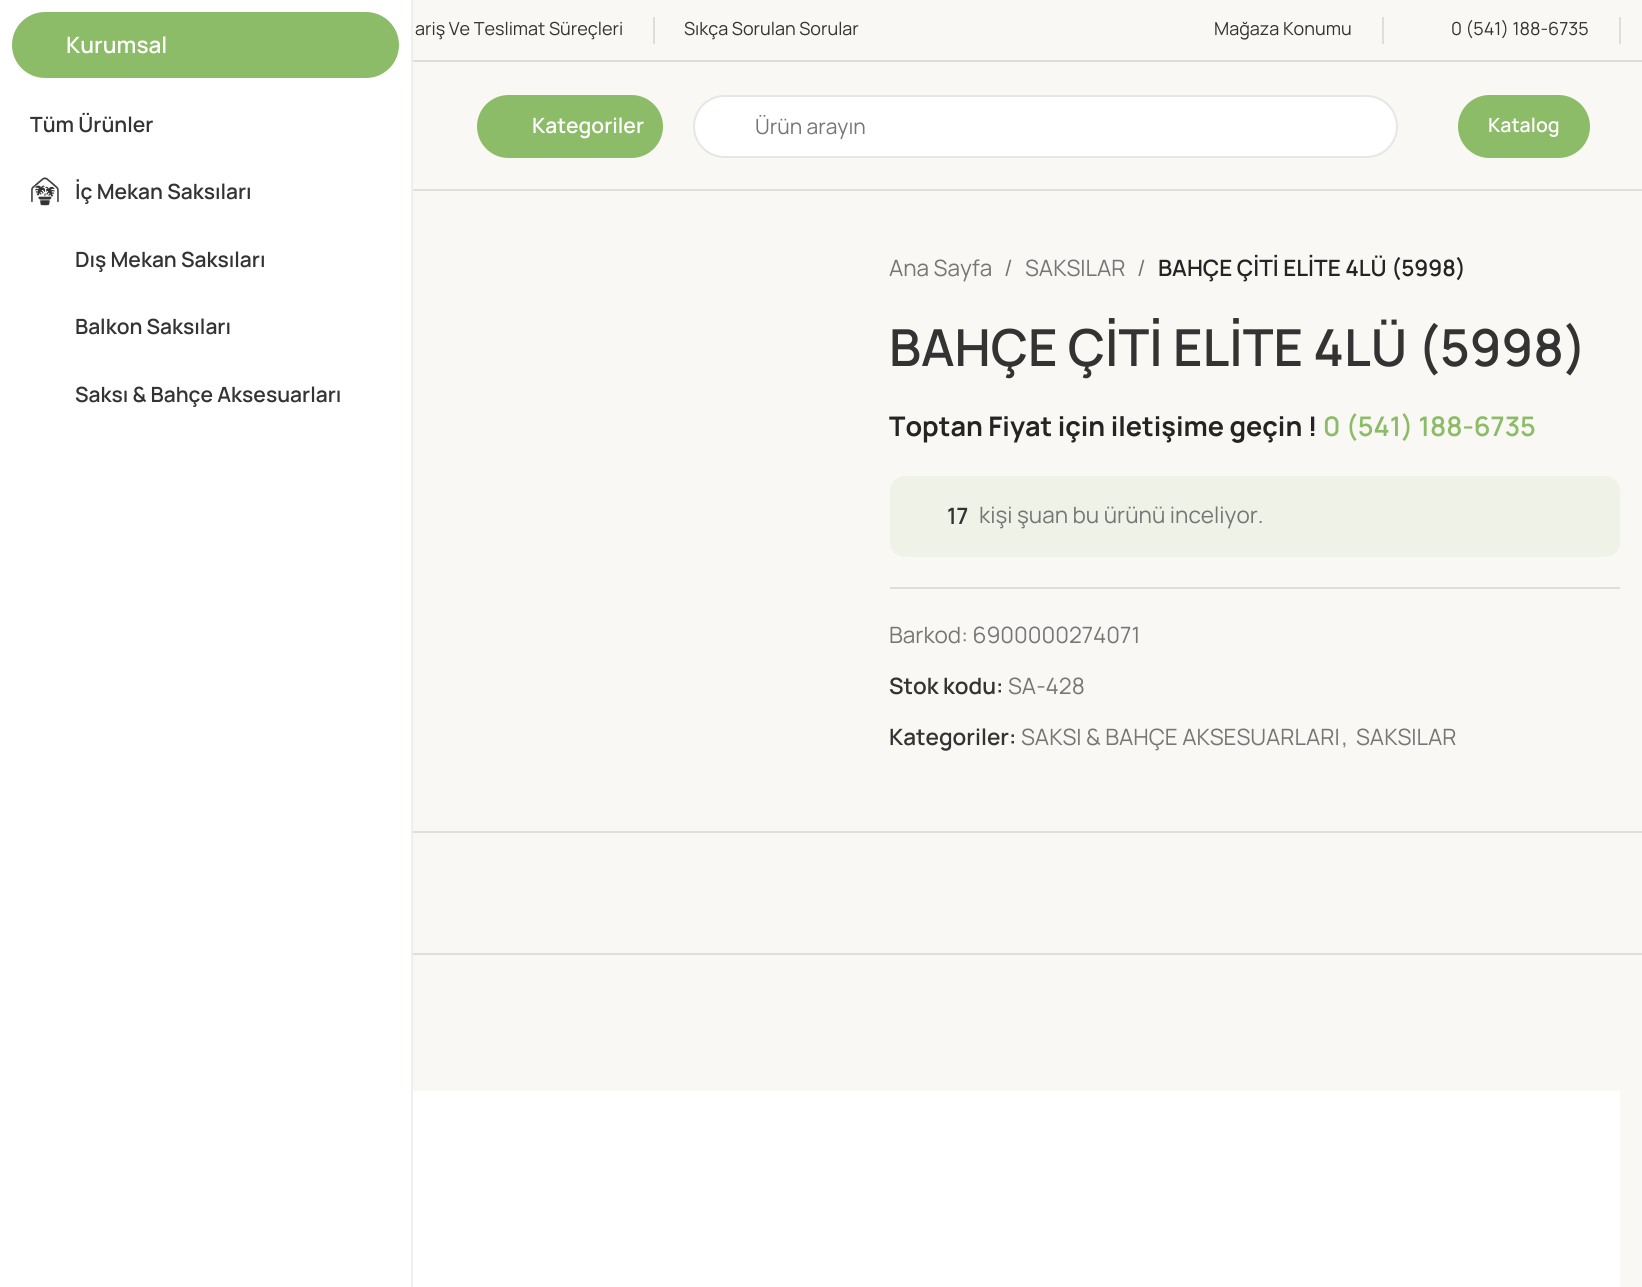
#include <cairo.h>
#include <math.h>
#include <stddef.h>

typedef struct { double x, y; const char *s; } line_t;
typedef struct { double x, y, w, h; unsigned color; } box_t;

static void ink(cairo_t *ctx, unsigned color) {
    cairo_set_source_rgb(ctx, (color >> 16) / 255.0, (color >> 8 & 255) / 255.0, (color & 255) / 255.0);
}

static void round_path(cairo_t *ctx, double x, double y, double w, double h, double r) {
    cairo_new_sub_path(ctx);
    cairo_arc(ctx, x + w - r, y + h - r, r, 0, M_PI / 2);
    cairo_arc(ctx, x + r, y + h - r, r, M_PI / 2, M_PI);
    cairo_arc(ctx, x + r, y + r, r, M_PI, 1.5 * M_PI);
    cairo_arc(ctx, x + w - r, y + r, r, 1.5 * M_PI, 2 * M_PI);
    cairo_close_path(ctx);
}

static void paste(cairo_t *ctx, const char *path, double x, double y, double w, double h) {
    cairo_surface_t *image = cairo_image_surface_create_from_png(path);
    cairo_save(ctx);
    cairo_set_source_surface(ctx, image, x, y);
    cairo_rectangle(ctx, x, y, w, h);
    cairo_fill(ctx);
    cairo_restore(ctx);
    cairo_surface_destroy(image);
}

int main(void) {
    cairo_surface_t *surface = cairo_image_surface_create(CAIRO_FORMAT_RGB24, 1642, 1287);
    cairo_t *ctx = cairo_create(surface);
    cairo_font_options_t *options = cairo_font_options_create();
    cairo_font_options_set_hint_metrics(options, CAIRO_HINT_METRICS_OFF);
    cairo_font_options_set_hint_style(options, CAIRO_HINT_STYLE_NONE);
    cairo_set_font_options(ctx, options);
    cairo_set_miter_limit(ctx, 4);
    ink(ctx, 0xFAF8F5);
    cairo_paint(ctx);
    ink(ctx, 0xFFFFFF);
    cairo_rectangle(ctx, 0, 0, 411, 1287);
    cairo_fill(ctx);
    ink(ctx, 0xEFEFEF);
    cairo_rectangle(ctx, 411, 0, 2, 1287);
    cairo_fill(ctx);
    ink(ctx, 0x8CBC67);
    round_path(ctx, 12, 12, 387, 66, 33);
    cairo_fill(ctx);
    cairo_select_font_face(ctx, "Manrope SemiBold", CAIRO_FONT_SLANT_NORMAL, CAIRO_FONT_WEIGHT_NORMAL);
    cairo_set_font_size(ctx, 22.5);
    ink(ctx, 0xFFFFFF);
    cairo_move_to(ctx, 66, 53);
    cairo_show_text(ctx, "Kurumsal");
    cairo_set_font_size(ctx, 21);
    ink(ctx, 0x333333);
    cairo_move_to(ctx, 30, 132);
    cairo_show_text(ctx, "Tüm Ürünler");
    paste(ctx, "media/1.png", 31, 177, 28, 29);
    {
        static const line_t items[] = {
            {75, 199, "İç Mekan Saksıları"},
            {75, 267, "Dış Mekan Saksıları"},
            {75, 334, "Balkon Saksıları"},
            {75, 402, "Saksı & Bahçe Aksesuarları"},
        };
        for (size_t i = 0; i < sizeof items / sizeof *items; i++) {
            cairo_move_to(ctx, items[i].x, items[i].y);
            cairo_show_text(ctx, items[i].s);
        }
    }
    ink(ctx, 0xDFDDDA);
    cairo_rectangle(ctx, 413, 60, 1229, 2);
    cairo_fill(ctx);
    cairo_select_font_face(ctx, "Manrope", CAIRO_FONT_SLANT_NORMAL, CAIRO_FONT_WEIGHT_NORMAL);
    cairo_set_font_size(ctx, 18);
    ink(ctx, 0x333333);
    cairo_move_to(ctx, 415, 35);
    cairo_show_text(ctx, "ariş Ve Teslimat Süreçleri");
    ink(ctx, 0xE0DEDB);
    cairo_rectangle(ctx, 653, 17, 2, 27);
    cairo_fill(ctx);
    ink(ctx, 0x333333);
    cairo_move_to(ctx, 684, 35);
    cairo_show_text(ctx, "Sıkça Sorulan Sorular");
    cairo_move_to(ctx, 1214, 35);
    cairo_show_text(ctx, "Mağaza Konumu");
    ink(ctx, 0xE0DEDB);
    cairo_rectangle(ctx, 1382, 17, 2, 27);
    cairo_fill(ctx);
    ink(ctx, 0x333333);
    cairo_move_to(ctx, 1451, 35);
    cairo_show_text(ctx, "0 (541) 188-6735");
    ink(ctx, 0xE0DEDB);
    cairo_rectangle(ctx, 1619, 17, 2, 27);
    cairo_fill(ctx);
    ink(ctx, 0xE1DFDD);
    cairo_rectangle(ctx, 413, 189, 1229, 2);
    cairo_fill(ctx);
    ink(ctx, 0x8CBC67);
    round_path(ctx, 477, 95, 186, 63, 31.5);
    cairo_fill(ctx);
    cairo_select_font_face(ctx, "Manrope SemiBold", CAIRO_FONT_SLANT_NORMAL, CAIRO_FONT_WEIGHT_NORMAL);
    cairo_set_font_size(ctx, 21);
    ink(ctx, 0xFFFFFF);
    cairo_move_to(ctx, 532, 133);
    cairo_show_text(ctx, "Kategoriler");
    round_path(ctx, 693, 95, 705, 63, 31.5);
    cairo_fill(ctx);
    round_path(ctx, 694, 96, 703, 61, 30.5);
    cairo_set_source_rgba(ctx, 0, 0, 0, 0.1);
    cairo_stroke(ctx);
    cairo_select_font_face(ctx, "Manrope", CAIRO_FONT_SLANT_NORMAL, CAIRO_FONT_WEIGHT_NORMAL);
    ink(ctx, 0x767676);
    cairo_move_to(ctx, 755, 134);
    cairo_show_text(ctx, "Ürün arayın");
    ink(ctx, 0x8CBC67);
    round_path(ctx, 1458, 95, 132, 63, 31.5);
    cairo_fill(ctx);
    cairo_select_font_face(ctx, "Manrope SemiBold", CAIRO_FONT_SLANT_NORMAL, CAIRO_FONT_WEIGHT_NORMAL);
    cairo_set_font_size(ctx, 19.5);
    ink(ctx, 0xFFFFFF);
    cairo_move_to(ctx, 1488, 132);
    cairo_show_text(ctx, "Katalog");
    cairo_select_font_face(ctx, "Manrope", CAIRO_FONT_SLANT_NORMAL, CAIRO_FONT_WEIGHT_NORMAL);
    cairo_set_font_size(ctx, 22.5);
    ink(ctx, 0x767676);
    {
        static const line_t items[] = {
            {889, 276, "Ana Sayfa"},
            {1004, 276, "/"},
            {1025, 276, "SAKSILAR"},
            {1137, 276, "/"},
        };
        for (size_t i = 0; i < sizeof items / sizeof *items; i++) {
            cairo_move_to(ctx, items[i].x, items[i].y);
            cairo_show_text(ctx, items[i].s);
        }
    }
    cairo_select_font_face(ctx, "Manrope SemiBold", CAIRO_FONT_SLANT_NORMAL, CAIRO_FONT_WEIGHT_NORMAL);
    ink(ctx, 0x242424);
    cairo_move_to(ctx, 1158, 276);
    cairo_show_text(ctx, "BAHÇE ÇİTİ ELİTE 4LÜ (5998)");
    cairo_set_font_size(ctx, 51);
    ink(ctx, 0x333333);
    cairo_move_to(ctx, 889, 366);
    cairo_show_text(ctx, "BAHÇE ÇİTİ ELİTE 4LÜ (5998)");
    cairo_select_font_face(ctx, "Manrope", CAIRO_FONT_SLANT_NORMAL, CAIRO_FONT_WEIGHT_BOLD);
    cairo_set_font_size(ctx, 27);
    ink(ctx, 0x242424);
    cairo_move_to(ctx, 889, 436);
    cairo_show_text(ctx, "Toptan Fiyat için iletişime geçin !");
    cairo_select_font_face(ctx, "Manrope SemiBold", CAIRO_FONT_SLANT_NORMAL, CAIRO_FONT_WEIGHT_NORMAL);
    ink(ctx, 0x8CBC67);
    cairo_move_to(ctx, 1323, 436);
    cairo_show_text(ctx, "0 (541) 188-6735");
    cairo_set_source_rgba(ctx, 0.549, 0.737, 0.404, 0.1);
    round_path(ctx, 890, 476, 730, 81, 15);
    cairo_fill(ctx);
    cairo_set_font_size(ctx, 22.5);
    ink(ctx, 0x333333);
    cairo_move_to(ctx, 947, 524);
    cairo_show_text(ctx, "17");
    cairo_select_font_face(ctx, "Manrope", CAIRO_FONT_SLANT_NORMAL, CAIRO_FONT_WEIGHT_NORMAL);
    ink(ctx, 0x767676);
    cairo_move_to(ctx, 979, 523);
    cairo_show_text(ctx, "kişi şuan bu ürünü inceliyor.");
    ink(ctx, 0xE0DEDB);
    cairo_rectangle(ctx, 890, 587, 730, 2);
    cairo_fill(ctx);
    ink(ctx, 0x767676);
    cairo_move_to(ctx, 889, 643);
    cairo_show_text(ctx, "Barkod: 6900000274071");
    cairo_select_font_face(ctx, "Manrope SemiBold", CAIRO_FONT_SLANT_NORMAL, CAIRO_FONT_WEIGHT_NORMAL);
    ink(ctx, 0x333333);
    cairo_move_to(ctx, 889, 694);
    cairo_show_text(ctx, "Stok kodu:");
    cairo_select_font_face(ctx, "Manrope", CAIRO_FONT_SLANT_NORMAL, CAIRO_FONT_WEIGHT_NORMAL);
    ink(ctx, 0x767676);
    cairo_move_to(ctx, 1008, 694);
    cairo_show_text(ctx, "SA-428");
    cairo_select_font_face(ctx, "Manrope SemiBold", CAIRO_FONT_SLANT_NORMAL, CAIRO_FONT_WEIGHT_NORMAL);
    ink(ctx, 0x333333);
    cairo_move_to(ctx, 889, 745);
    cairo_show_text(ctx, "Kategoriler:");
    cairo_select_font_face(ctx, "Manrope", CAIRO_FONT_SLANT_NORMAL, CAIRO_FONT_WEIGHT_NORMAL);
    ink(ctx, 0x767676);
    {
        static const line_t items[] = {
            {1021, 745, "SAKSI & BAHÇE AKSESUARLARI"},
            {1342, 745, ","},
            {1356, 745, "SAKSILAR"},
        };
        for (size_t i = 0; i < sizeof items / sizeof *items; i++) {
            cairo_move_to(ctx, items[i].x, items[i].y);
            cairo_show_text(ctx, items[i].s);
        }
    }
    {
        static const box_t items[] = {
            {413, 831, 1229, 2, 0xE0DEDB},
            {413, 953, 1229, 2, 0xE0DEDB},
            {413, 1091, 1207, 196, 0xFFFFFF},
        };
        for (size_t i = 0; i < sizeof items / sizeof *items; i++) {
            ink(ctx, items[i].color);
            cairo_rectangle(ctx, items[i].x, items[i].y, items[i].w, items[i].h);
            cairo_fill(ctx);
        }
    }
    cairo_surface_write_to_png(surface, "image.png");
    cairo_font_options_destroy(options);
    cairo_destroy(ctx);
    cairo_surface_destroy(surface);
    return 0;
}
